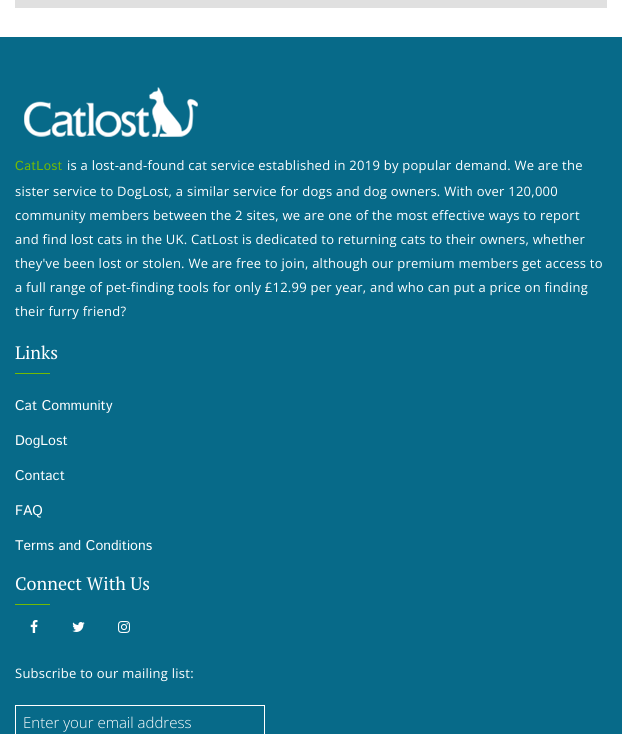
#include <cairo.h>
#include <math.h>
#include <stddef.h>

typedef struct { double x, y; const char *s; } line_t;

static void ink(cairo_t *ctx, unsigned color) {
    cairo_set_source_rgb(ctx, (color >> 16) / 255.0, (color >> 8 & 255) / 255.0, (color & 255) / 255.0);
}

static void write_spaced(cairo_t *ctx, double x, double y, const char *s, double letter, double word) {
    cairo_move_to(ctx, x, y);
    while (*s) {
        char ch[5] = {0};
        int n = 0;
        do ch[n++] = *s++; while ((*s & 0xC0) == 0x80);
        cairo_show_text(ctx, ch);
        cairo_rel_move_to(ctx, letter + word * (*ch == ' '), 0);
    }
}

static void paste(cairo_t *ctx, const char *path, double x, double y, double w, double h) {
    cairo_surface_t *image = cairo_image_surface_create_from_png(path);
    cairo_save(ctx);
    cairo_set_source_surface(ctx, image, x, y);
    cairo_rectangle(ctx, x, y, w, h);
    cairo_fill(ctx);
    cairo_restore(ctx);
    cairo_surface_destroy(image);
}

int main(void) {
    cairo_surface_t *surface = cairo_image_surface_create(CAIRO_FORMAT_RGB24, 622, 734);
    cairo_t *ctx = cairo_create(surface);
    cairo_font_options_t *options = cairo_font_options_create();
    cairo_font_options_set_hint_metrics(options, CAIRO_HINT_METRICS_OFF);
    cairo_font_options_set_hint_style(options, CAIRO_HINT_STYLE_NONE);
    cairo_set_font_options(ctx, options);
    cairo_set_miter_limit(ctx, 4);
    ink(ctx, 0xFFFFFF);
    cairo_paint(ctx);
    ink(ctx, 0xE0E0E0);
    cairo_rectangle(ctx, 15, 0, 592, 8);
    cairo_fill(ctx);
    ink(ctx, 0x076A89);
    cairo_rectangle(ctx, 0, 37, 622, 697);
    cairo_fill(ctx);
    paste(ctx, "media/1.png", 24, 87, 174, 50);
    cairo_select_font_face(ctx, "Istok Web", CAIRO_FONT_SLANT_NORMAL, CAIRO_FONT_WEIGHT_NORMAL);
    cairo_set_font_size(ctx, 13);
    ink(ctx, 0x73BA04);
    write_spaced(ctx, 15, 170, "CatLost", 0.25, 0);
    cairo_select_font_face(ctx, "Open Sans", CAIRO_FONT_SLANT_NORMAL, CAIRO_FONT_WEIGHT_NORMAL);
    ink(ctx, 0xFFFFFF);
    {
        static const line_t items[] = {
            {67, 170, "is a lost-and-found cat service established in 2019 by popular demand. We are the"},
            {15, 196, "sister service to DogLost, a similar service for dogs and dog owners. With over 120,000"},
            {15, 220, "community members between the 2 sites, we are one of the most effective ways to report"},
            {15, 244, "and find lost cats in the UK. CatLost is dedicated to returning cats to their owners, whether"},
            {15, 268, "they've been lost or stolen. We are free to join, although our premium members get access to"},
            {15, 292, "a full range of pet-finding tools for only £12.99 per year, and who can put a price on finding"},
            {15, 316, "their furry friend?"},
        };
        for (size_t i = 0; i < sizeof items / sizeof *items; i++) {
            write_spaced(ctx, items[i].x, items[i].y, items[i].s, 0.25, 0);
        }
    }
    cairo_select_font_face(ctx, "PT Serif", CAIRO_FONT_SLANT_NORMAL, CAIRO_FONT_WEIGHT_NORMAL);
    cairo_set_font_size(ctx, 18);
    cairo_move_to(ctx, 15, 359);
    cairo_show_text(ctx, "Links");
    ink(ctx, 0x73BA04);
    cairo_rectangle(ctx, 15, 373, 35, 1);
    cairo_fill(ctx);
    cairo_select_font_face(ctx, "Istok Web", CAIRO_FONT_SLANT_NORMAL, CAIRO_FONT_WEIGHT_NORMAL);
    cairo_set_font_size(ctx, 14);
    ink(ctx, 0xFFFFFF);
    {
        static const line_t items[] = {
            {15, 410, "Cat Community"},
            {15, 445, "DogLost"},
            {15, 480, "Contact"},
            {15, 515, "FAQ"},
            {15, 550, "Terms and Conditions"},
        };
        for (size_t i = 0; i < sizeof items / sizeof *items; i++) {
            cairo_move_to(ctx, items[i].x, items[i].y);
            cairo_show_text(ctx, items[i].s);
        }
    }
    cairo_select_font_face(ctx, "PT Serif", CAIRO_FONT_SLANT_NORMAL, CAIRO_FONT_WEIGHT_NORMAL);
    cairo_set_font_size(ctx, 18);
    cairo_move_to(ctx, 15, 590);
    cairo_show_text(ctx, "Connect With Us");
    ink(ctx, 0x73BA04);
    cairo_rectangle(ctx, 15, 604, 35, 1);
    cairo_fill(ctx);
    paste(ctx, "media/2.png", 30, 620, 8, 13);
    paste(ctx, "media/3.png", 72, 622, 13, 10);
    paste(ctx, "media/4.png", 118, 621, 12, 12);
    cairo_select_font_face(ctx, "Open Sans", CAIRO_FONT_SLANT_NORMAL, CAIRO_FONT_WEIGHT_NORMAL);
    cairo_set_font_size(ctx, 13);
    ink(ctx, 0xFFFFFF);
    write_spaced(ctx, 15, 678, "Subscribe to our mailing list:", 0.25, 0);
    cairo_rectangle(ctx, 15.5, 705.5, 249, 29);
    cairo_set_line_width(ctx, 1);
    cairo_stroke(ctx);
    cairo_select_font_face(ctx, "Open Sans Light", CAIRO_FONT_SLANT_NORMAL, CAIRO_FONT_WEIGHT_NORMAL);
    cairo_set_font_size(ctx, 15);
    cairo_move_to(ctx, 23, 728);
    cairo_show_text(ctx, "Enter your email address");
    cairo_surface_write_to_png(surface, "image.png");
    cairo_font_options_destroy(options);
    cairo_destroy(ctx);
    cairo_surface_destroy(surface);
    return 0;
}
